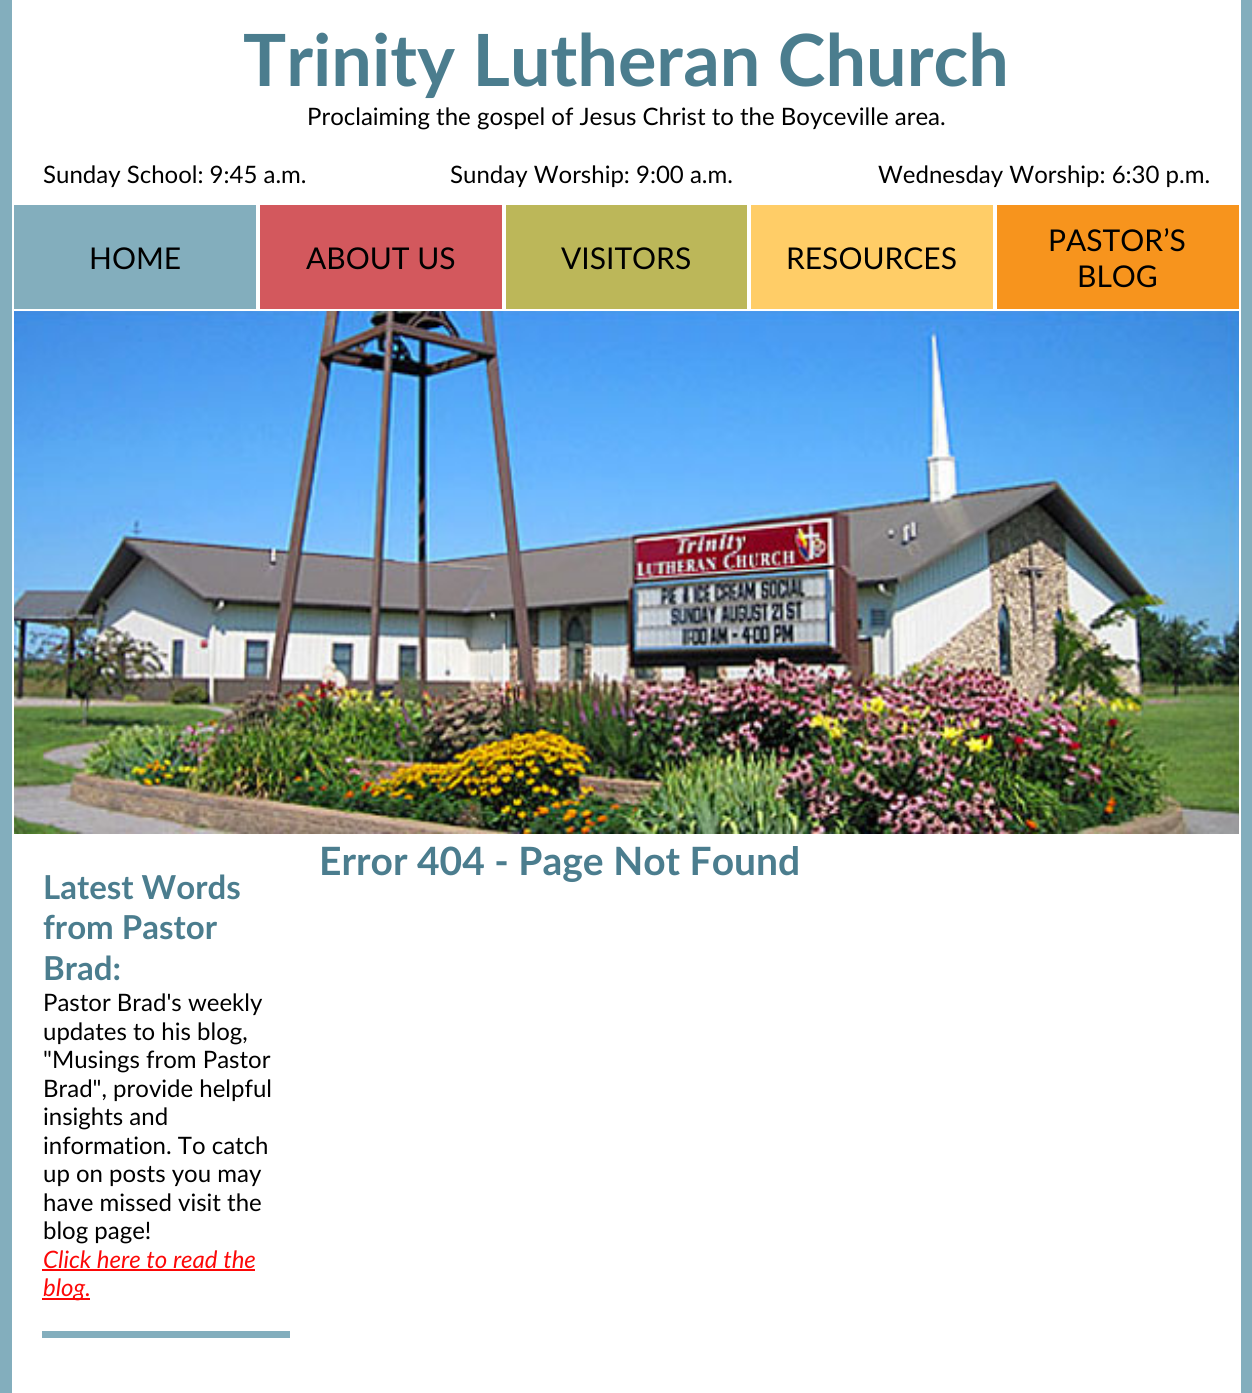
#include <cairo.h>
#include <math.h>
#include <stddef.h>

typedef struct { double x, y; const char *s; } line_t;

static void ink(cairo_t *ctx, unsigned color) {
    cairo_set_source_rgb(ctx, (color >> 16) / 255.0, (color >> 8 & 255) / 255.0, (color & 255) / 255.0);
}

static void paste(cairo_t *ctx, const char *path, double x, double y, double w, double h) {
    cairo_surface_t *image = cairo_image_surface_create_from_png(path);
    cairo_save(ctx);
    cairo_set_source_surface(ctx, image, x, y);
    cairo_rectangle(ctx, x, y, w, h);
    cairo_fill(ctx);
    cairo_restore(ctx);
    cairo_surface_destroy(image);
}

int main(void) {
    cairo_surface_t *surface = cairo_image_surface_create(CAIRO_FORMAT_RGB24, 1252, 1393);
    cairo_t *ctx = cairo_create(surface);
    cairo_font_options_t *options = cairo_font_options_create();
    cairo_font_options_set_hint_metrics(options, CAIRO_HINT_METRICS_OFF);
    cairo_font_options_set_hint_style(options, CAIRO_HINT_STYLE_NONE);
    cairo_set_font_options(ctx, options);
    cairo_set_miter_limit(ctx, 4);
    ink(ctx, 0x83AEBD);
    cairo_paint(ctx);
    ink(ctx, 0xFFFFFF);
    cairo_rectangle(ctx, 12, 0, 1229, 1393);
    cairo_fill(ctx);
    cairo_select_font_face(ctx, "Lato", CAIRO_FONT_SLANT_NORMAL, CAIRO_FONT_WEIGHT_BOLD);
    cairo_set_font_size(ctx, 72);
    ink(ctx, 0x4B7D8E);
    cairo_move_to(ctx, 243, 86);
    cairo_show_text(ctx, "Trinity Lutheran Church");
    cairo_select_font_face(ctx, "Lato", CAIRO_FONT_SLANT_NORMAL, CAIRO_FONT_WEIGHT_NORMAL);
    cairo_set_font_size(ctx, 24);
    ink(ctx, 0x000000);
    {
        static const line_t items[] = {
            {307, 125, "Proclaiming the gospel of Jesus Christ to the Boyceville area."},
            {43, 183, "Sunday School: 9:45 a.m."},
            {450, 183, "Sunday Worship: 9:00 a.m."},
            {878, 183, "Wednesday Worship: 6:30 p.m."},
        };
        for (size_t i = 0; i < sizeof items / sizeof *items; i++) {
            cairo_move_to(ctx, items[i].x, items[i].y);
            cairo_show_text(ctx, items[i].s);
        }
    }
    ink(ctx, 0x83AEBD);
    cairo_rectangle(ctx, 14, 205, 242, 104);
    cairo_fill(ctx);
    cairo_set_font_size(ctx, 30);
    ink(ctx, 0x000000);
    cairo_move_to(ctx, 89, 269);
    cairo_show_text(ctx, "HOME");
    ink(ctx, 0xD3585D);
    cairo_rectangle(ctx, 260, 205, 242, 104);
    cairo_fill(ctx);
    ink(ctx, 0x000000);
    cairo_move_to(ctx, 306, 269);
    cairo_show_text(ctx, "ABOUT US");
    ink(ctx, 0xBCB759);
    cairo_rectangle(ctx, 506, 205, 241, 104);
    cairo_fill(ctx);
    ink(ctx, 0x000000);
    cairo_move_to(ctx, 561, 269);
    cairo_show_text(ctx, "VISITORS");
    ink(ctx, 0xFFCD67);
    cairo_rectangle(ctx, 751, 205, 242, 104);
    cairo_fill(ctx);
    ink(ctx, 0x000000);
    cairo_move_to(ctx, 786, 269);
    cairo_show_text(ctx, "RESOURCES");
    ink(ctx, 0xF7941D);
    cairo_rectangle(ctx, 997, 205, 242, 104);
    cairo_fill(ctx);
    ink(ctx, 0x000000);
    cairo_move_to(ctx, 1048, 251);
    cairo_show_text(ctx, "PASTOR’S");
    cairo_move_to(ctx, 1077, 287);
    cairo_show_text(ctx, "BLOG");
    paste(ctx, "media/1.png", 14, 311, 1225, 523);
    cairo_select_font_face(ctx, "Lato", CAIRO_FONT_SLANT_NORMAL, CAIRO_FONT_WEIGHT_BOLD);
    cairo_set_font_size(ctx, 39);
    ink(ctx, 0x4B7D8E);
    cairo_move_to(ctx, 319, 875);
    cairo_show_text(ctx, "Error 404 - Page Not Found");
    ink(ctx, 0x83AEBD);
    cairo_rectangle(ctx, 42, 1331, 248, 7);
    cairo_fill(ctx);
    cairo_set_font_size(ctx, 33);
    ink(ctx, 0x4B7D8E);
    {
        static const line_t items[] = {
            {43, 899, "Latest Words"},
            {43, 939, "from Pastor"},
            {43, 980, "Brad:"},
        };
        for (size_t i = 0; i < sizeof items / sizeof *items; i++) {
            cairo_move_to(ctx, items[i].x, items[i].y);
            cairo_show_text(ctx, items[i].s);
        }
    }
    cairo_select_font_face(ctx, "Lato", CAIRO_FONT_SLANT_NORMAL, CAIRO_FONT_WEIGHT_NORMAL);
    cairo_set_font_size(ctx, 24);
    ink(ctx, 0x000000);
    {
        static const line_t items[] = {
            {43, 1011, "Pastor Brad's weekly"},
            {43, 1040, "updates to his blog,"},
            {43, 1068, "\"Musings from Pastor"},
            {43, 1097, "Brad\", provide helpful"},
            {43, 1125, "insights and"},
            {43, 1154, "information. To catch"},
            {43, 1182, "up on posts you may"},
            {43, 1211, "have missed visit the"},
            {43, 1239, "blog page!"},
        };
        for (size_t i = 0; i < sizeof items / sizeof *items; i++) {
            cairo_move_to(ctx, items[i].x, items[i].y);
            cairo_show_text(ctx, items[i].s);
        }
    }
    cairo_select_font_face(ctx, "Lato", CAIRO_FONT_SLANT_ITALIC, CAIRO_FONT_WEIGHT_NORMAL);
    ink(ctx, 0xFC0808);
    cairo_move_to(ctx, 43, 1268);
    cairo_show_text(ctx, "Click here to read the");
    cairo_rectangle(ctx, 42, 1269, 213, 2);
    cairo_fill(ctx);
    cairo_rectangle(ctx, 42, 1298, 48, 2);
    cairo_fill(ctx);
    cairo_move_to(ctx, 43, 1296);
    cairo_show_text(ctx, "blog.");
    cairo_surface_write_to_png(surface, "image.png");
    cairo_font_options_destroy(options);
    cairo_destroy(ctx);
    cairo_surface_destroy(surface);
    return 0;
}
